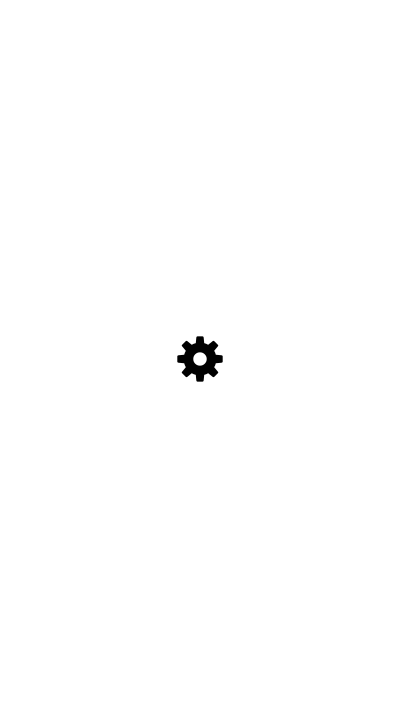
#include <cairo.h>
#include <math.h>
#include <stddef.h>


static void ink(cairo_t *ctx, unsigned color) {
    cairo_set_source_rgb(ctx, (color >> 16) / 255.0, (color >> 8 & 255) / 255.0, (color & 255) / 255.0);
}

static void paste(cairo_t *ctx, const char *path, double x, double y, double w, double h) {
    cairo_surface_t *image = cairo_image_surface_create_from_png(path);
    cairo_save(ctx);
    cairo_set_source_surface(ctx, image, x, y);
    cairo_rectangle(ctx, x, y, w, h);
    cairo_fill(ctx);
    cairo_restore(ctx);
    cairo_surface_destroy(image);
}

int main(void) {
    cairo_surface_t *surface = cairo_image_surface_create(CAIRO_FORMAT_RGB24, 399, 716);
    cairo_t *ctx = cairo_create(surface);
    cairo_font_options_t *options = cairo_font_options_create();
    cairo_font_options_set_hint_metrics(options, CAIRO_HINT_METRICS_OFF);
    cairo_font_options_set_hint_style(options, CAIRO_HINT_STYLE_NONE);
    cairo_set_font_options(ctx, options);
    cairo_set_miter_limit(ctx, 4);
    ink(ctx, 0xFFFFFF);
    cairo_paint(ctx);
    paste(ctx, "media/1.png", 177, 336, 46, 46);
    cairo_surface_write_to_png(surface, "image.png");
    cairo_font_options_destroy(options);
    cairo_destroy(ctx);
    cairo_surface_destroy(surface);
    return 0;
}
